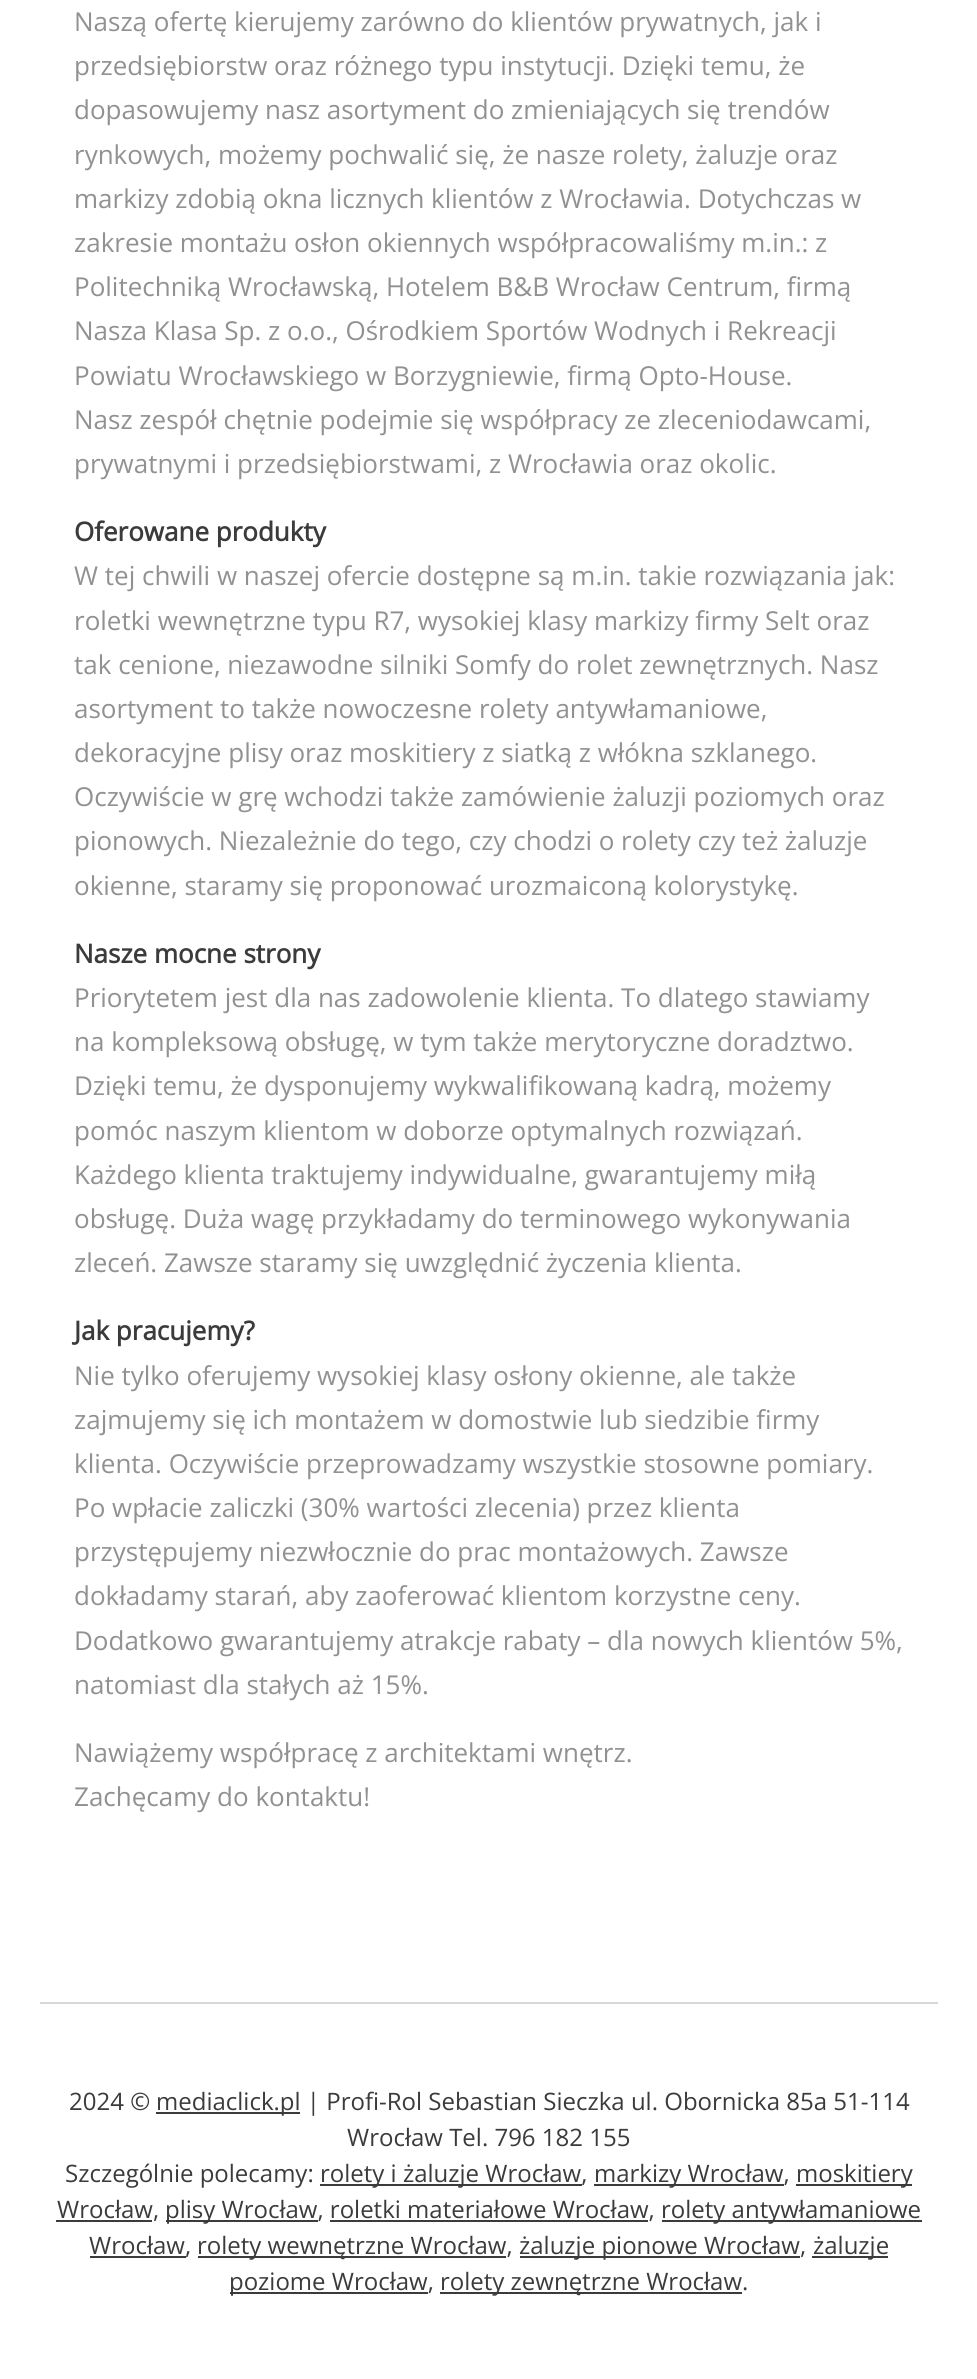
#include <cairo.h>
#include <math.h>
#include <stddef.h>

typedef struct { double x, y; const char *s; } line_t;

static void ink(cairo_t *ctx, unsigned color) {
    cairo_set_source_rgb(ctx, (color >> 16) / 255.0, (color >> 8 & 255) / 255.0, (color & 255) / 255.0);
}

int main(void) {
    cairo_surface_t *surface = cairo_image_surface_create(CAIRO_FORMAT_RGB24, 977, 2379);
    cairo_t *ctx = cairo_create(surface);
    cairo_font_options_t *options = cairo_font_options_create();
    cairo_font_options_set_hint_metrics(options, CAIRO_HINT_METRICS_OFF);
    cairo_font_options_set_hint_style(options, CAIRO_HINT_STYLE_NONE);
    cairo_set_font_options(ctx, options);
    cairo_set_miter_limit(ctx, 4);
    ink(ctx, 0xFFFFFF);
    cairo_paint(ctx);
    cairo_select_font_face(ctx, "Open Sans", CAIRO_FONT_SLANT_NORMAL, CAIRO_FONT_WEIGHT_NORMAL);
    cairo_set_font_size(ctx, 26);
    ink(ctx, 0x919191);
    {
        static const line_t items[] = {
            {74, 31, "Naszą ofertę kierujemy zarówno do klientów prywatnych, jak i"},
            {74, 75, "przedsiębiorstw oraz różnego typu instytucji. Dzięki temu, że"},
            {74, 119, "dopasowujemy nasz asortyment do zmieniających się trendów"},
            {74, 164, "rynkowych, możemy pochwalić się, że nasze rolety, żaluzje oraz"},
            {74, 208, "markizy zdobią okna licznych klientów z Wrocławia. Dotychczas w"},
            {74, 252, "zakresie montażu osłon okiennych współpracowaliśmy m.in.: z"},
            {74, 296, "Politechniką Wrocławską, Hotelem B&B Wrocław Centrum, firmą"},
            {74, 340, "Nasza Klasa Sp. z o.o., Ośrodkiem Sportów Wodnych i Rekreacji"},
            {74, 385, "Powiatu Wrocławskiego w Borzygniewie, firmą Opto-House."},
            {74, 429, "Nasz zespół chętnie podejmie się współpracy ze zleceniodawcami,"},
            {74, 473, "prywatnymi i przedsiębiorstwami, z Wrocławia oraz okolic."},
        };
        for (size_t i = 0; i < sizeof items / sizeof *items; i++) {
            cairo_move_to(ctx, items[i].x, items[i].y);
            cairo_show_text(ctx, items[i].s);
        }
    }
    cairo_select_font_face(ctx, "Open Sans", CAIRO_FONT_SLANT_NORMAL, CAIRO_FONT_WEIGHT_BOLD);
    ink(ctx, 0x3B3B3B);
    cairo_move_to(ctx, 74, 541);
    cairo_show_text(ctx, "Oferowane produkty");
    cairo_select_font_face(ctx, "Open Sans", CAIRO_FONT_SLANT_NORMAL, CAIRO_FONT_WEIGHT_NORMAL);
    ink(ctx, 0x919191);
    {
        static const line_t items[] = {
            {74, 585, "W tej chwili w naszej ofercie dostępne są m.in. takie rozwiązania jak:"},
            {74, 630, "roletki wewnętrzne typu R7, wysokiej klasy markizy firmy Selt oraz"},
            {74, 674, "tak cenione, niezawodne silniki Somfy do rolet zewnętrznych. Nasz"},
            {74, 718, "asortyment to także nowoczesne rolety antywłamaniowe,"},
            {74, 762, "dekoracyjne plisy oraz moskitiery z siatką z włókna szklanego."},
            {74, 806, "Oczywiście w grę wchodzi także zamówienie żaluzji poziomych oraz"},
            {74, 850, "pionowych. Niezależnie do tego, czy chodzi o rolety czy też żaluzje"},
            {74, 895, "okienne, staramy się proponować urozmaiconą kolorystykę."},
        };
        for (size_t i = 0; i < sizeof items / sizeof *items; i++) {
            cairo_move_to(ctx, items[i].x, items[i].y);
            cairo_show_text(ctx, items[i].s);
        }
    }
    cairo_select_font_face(ctx, "Open Sans", CAIRO_FONT_SLANT_NORMAL, CAIRO_FONT_WEIGHT_BOLD);
    ink(ctx, 0x3B3B3B);
    cairo_move_to(ctx, 74, 963);
    cairo_show_text(ctx, "Nasze mocne strony");
    cairo_select_font_face(ctx, "Open Sans", CAIRO_FONT_SLANT_NORMAL, CAIRO_FONT_WEIGHT_NORMAL);
    ink(ctx, 0x919191);
    {
        static const line_t items[] = {
            {74, 1007, "Priorytetem jest dla nas zadowolenie klienta. To dlatego stawiamy"},
            {74, 1051, "na kompleksową obsługę, w tym także merytoryczne doradztwo."},
            {74, 1095, "Dzięki temu, że dysponujemy wykwalifikowaną kadrą, możemy"},
            {74, 1140, "pomóc naszym klientom w doborze optymalnych rozwiązań."},
            {74, 1184, "Każdego klienta traktujemy indywidualne, gwarantujemy miłą"},
            {74, 1228, "obsługę. Duża wagę przykładamy do terminowego wykonywania"},
            {74, 1272, "zleceń. Zawsze staramy się uwzględnić życzenia klienta."},
        };
        for (size_t i = 0; i < sizeof items / sizeof *items; i++) {
            cairo_move_to(ctx, items[i].x, items[i].y);
            cairo_show_text(ctx, items[i].s);
        }
    }
    cairo_select_font_face(ctx, "Open Sans", CAIRO_FONT_SLANT_NORMAL, CAIRO_FONT_WEIGHT_BOLD);
    ink(ctx, 0x3B3B3B);
    cairo_move_to(ctx, 74, 1340);
    cairo_show_text(ctx, "Jak pracujemy?");
    cairo_select_font_face(ctx, "Open Sans", CAIRO_FONT_SLANT_NORMAL, CAIRO_FONT_WEIGHT_NORMAL);
    ink(ctx, 0x919191);
    {
        static const line_t items[] = {
            {74, 1385, "Nie tylko oferujemy wysokiej klasy osłony okienne, ale także"},
            {74, 1429, "zajmujemy się ich montażem w domostwie lub siedzibie firmy"},
            {74, 1473, "klienta. Oczywiście przeprowadzamy wszystkie stosowne pomiary."},
            {74, 1517, "Po wpłacie zaliczki (30% wartości zlecenia) przez klienta"},
            {74, 1561, "przystępujemy niezwłocznie do prac montażowych. Zawsze"},
            {74, 1605, "dokładamy starań, aby zaoferować klientom korzystne ceny."},
            {74, 1650, "Dodatkowo gwarantujemy atrakcje rabaty – dla nowych klientów 5%,"},
            {74, 1694, "natomiast dla stałych aż 15%."},
            {74, 1762, "Nawiążemy współpracę z architektami wnętrz."},
            {74, 1806, "Zachęcamy do kontaktu!"},
        };
        for (size_t i = 0; i < sizeof items / sizeof *items; i++) {
            cairo_move_to(ctx, items[i].x, items[i].y);
            cairo_show_text(ctx, items[i].s);
        }
    }
    ink(ctx, 0xD8D8D8);
    cairo_rectangle(ctx, 40, 2002, 898, 2);
    cairo_fill(ctx);
    cairo_set_font_size(ctx, 24);
    ink(ctx, 0x3B3B3B);
    cairo_move_to(ctx, 69, 2110);
    cairo_show_text(ctx, "2024 ©");
    cairo_rectangle(ctx, 156, 2112, 144, 2);
    cairo_fill(ctx);
    {
        static const line_t items[] = {
            {156, 2110, "mediaclick.pl | Profi-Rol Sebastian Sieczka ul. Obornicka 85a 51-114"},
            {347, 2146, "Wrocław Tel. 796 182 155"},
            {65, 2182, "Szczególnie polecamy:"},
        };
        for (size_t i = 0; i < sizeof items / sizeof *items; i++) {
            cairo_move_to(ctx, items[i].x, items[i].y);
            cairo_show_text(ctx, items[i].s);
        }
    }
    cairo_rectangle(ctx, 320, 2184, 262, 2);
    cairo_fill(ctx);
    cairo_move_to(ctx, 320, 2182);
    cairo_show_text(ctx, "rolety i żaluzje Wrocław,");
    cairo_rectangle(ctx, 594, 2184, 190, 2);
    cairo_fill(ctx);
    cairo_move_to(ctx, 594, 2182);
    cairo_show_text(ctx, "markizy Wrocław,");
    cairo_rectangle(ctx, 796, 2184, 116, 2);
    cairo_fill(ctx);
    cairo_move_to(ctx, 796, 2182);
    cairo_show_text(ctx, "moskitiery");
    cairo_rectangle(ctx, 56, 2220, 96, 2);
    cairo_fill(ctx);
    cairo_move_to(ctx, 57, 2218);
    cairo_show_text(ctx, "Wrocław,");
    cairo_rectangle(ctx, 166, 2220, 152, 2);
    cairo_fill(ctx);
    cairo_move_to(ctx, 165, 2218);
    cairo_show_text(ctx, "plisy Wrocław, roletki materiałowe Wrocław,");
    cairo_rectangle(ctx, 662, 2220, 260, 2);
    cairo_fill(ctx);
    cairo_move_to(ctx, 661, 2218);
    cairo_show_text(ctx, "rolety antywłamaniowe");
    cairo_rectangle(ctx, 330, 2220, 318, 2);
    cairo_fill(ctx);
    cairo_rectangle(ctx, 90, 2256, 96, 2);
    cairo_fill(ctx);
    cairo_move_to(ctx, 89, 2254);
    cairo_show_text(ctx, "Wrocław,");
    cairo_rectangle(ctx, 198, 2256, 308, 2);
    cairo_fill(ctx);
    cairo_move_to(ctx, 197, 2254);
    cairo_show_text(ctx, "rolety wewnętrzne Wrocław,");
    cairo_rectangle(ctx, 520, 2256, 280, 2);
    cairo_fill(ctx);
    cairo_move_to(ctx, 519, 2254);
    cairo_show_text(ctx, "żaluzje pionowe Wrocław,");
    cairo_rectangle(ctx, 812, 2256, 76, 2);
    cairo_fill(ctx);
    cairo_move_to(ctx, 813, 2254);
    cairo_show_text(ctx, "żaluzje");
    cairo_rectangle(ctx, 230, 2292, 198, 2);
    cairo_fill(ctx);
    cairo_move_to(ctx, 229, 2290);
    cairo_show_text(ctx, "poziome Wrocław,");
    cairo_rectangle(ctx, 440, 2292, 302, 2);
    cairo_fill(ctx);
    cairo_move_to(ctx, 440, 2290);
    cairo_show_text(ctx, "rolety zewnętrzne Wrocław.");
    cairo_surface_write_to_png(surface, "image.png");
    cairo_font_options_destroy(options);
    cairo_destroy(ctx);
    cairo_surface_destroy(surface);
    return 0;
}
